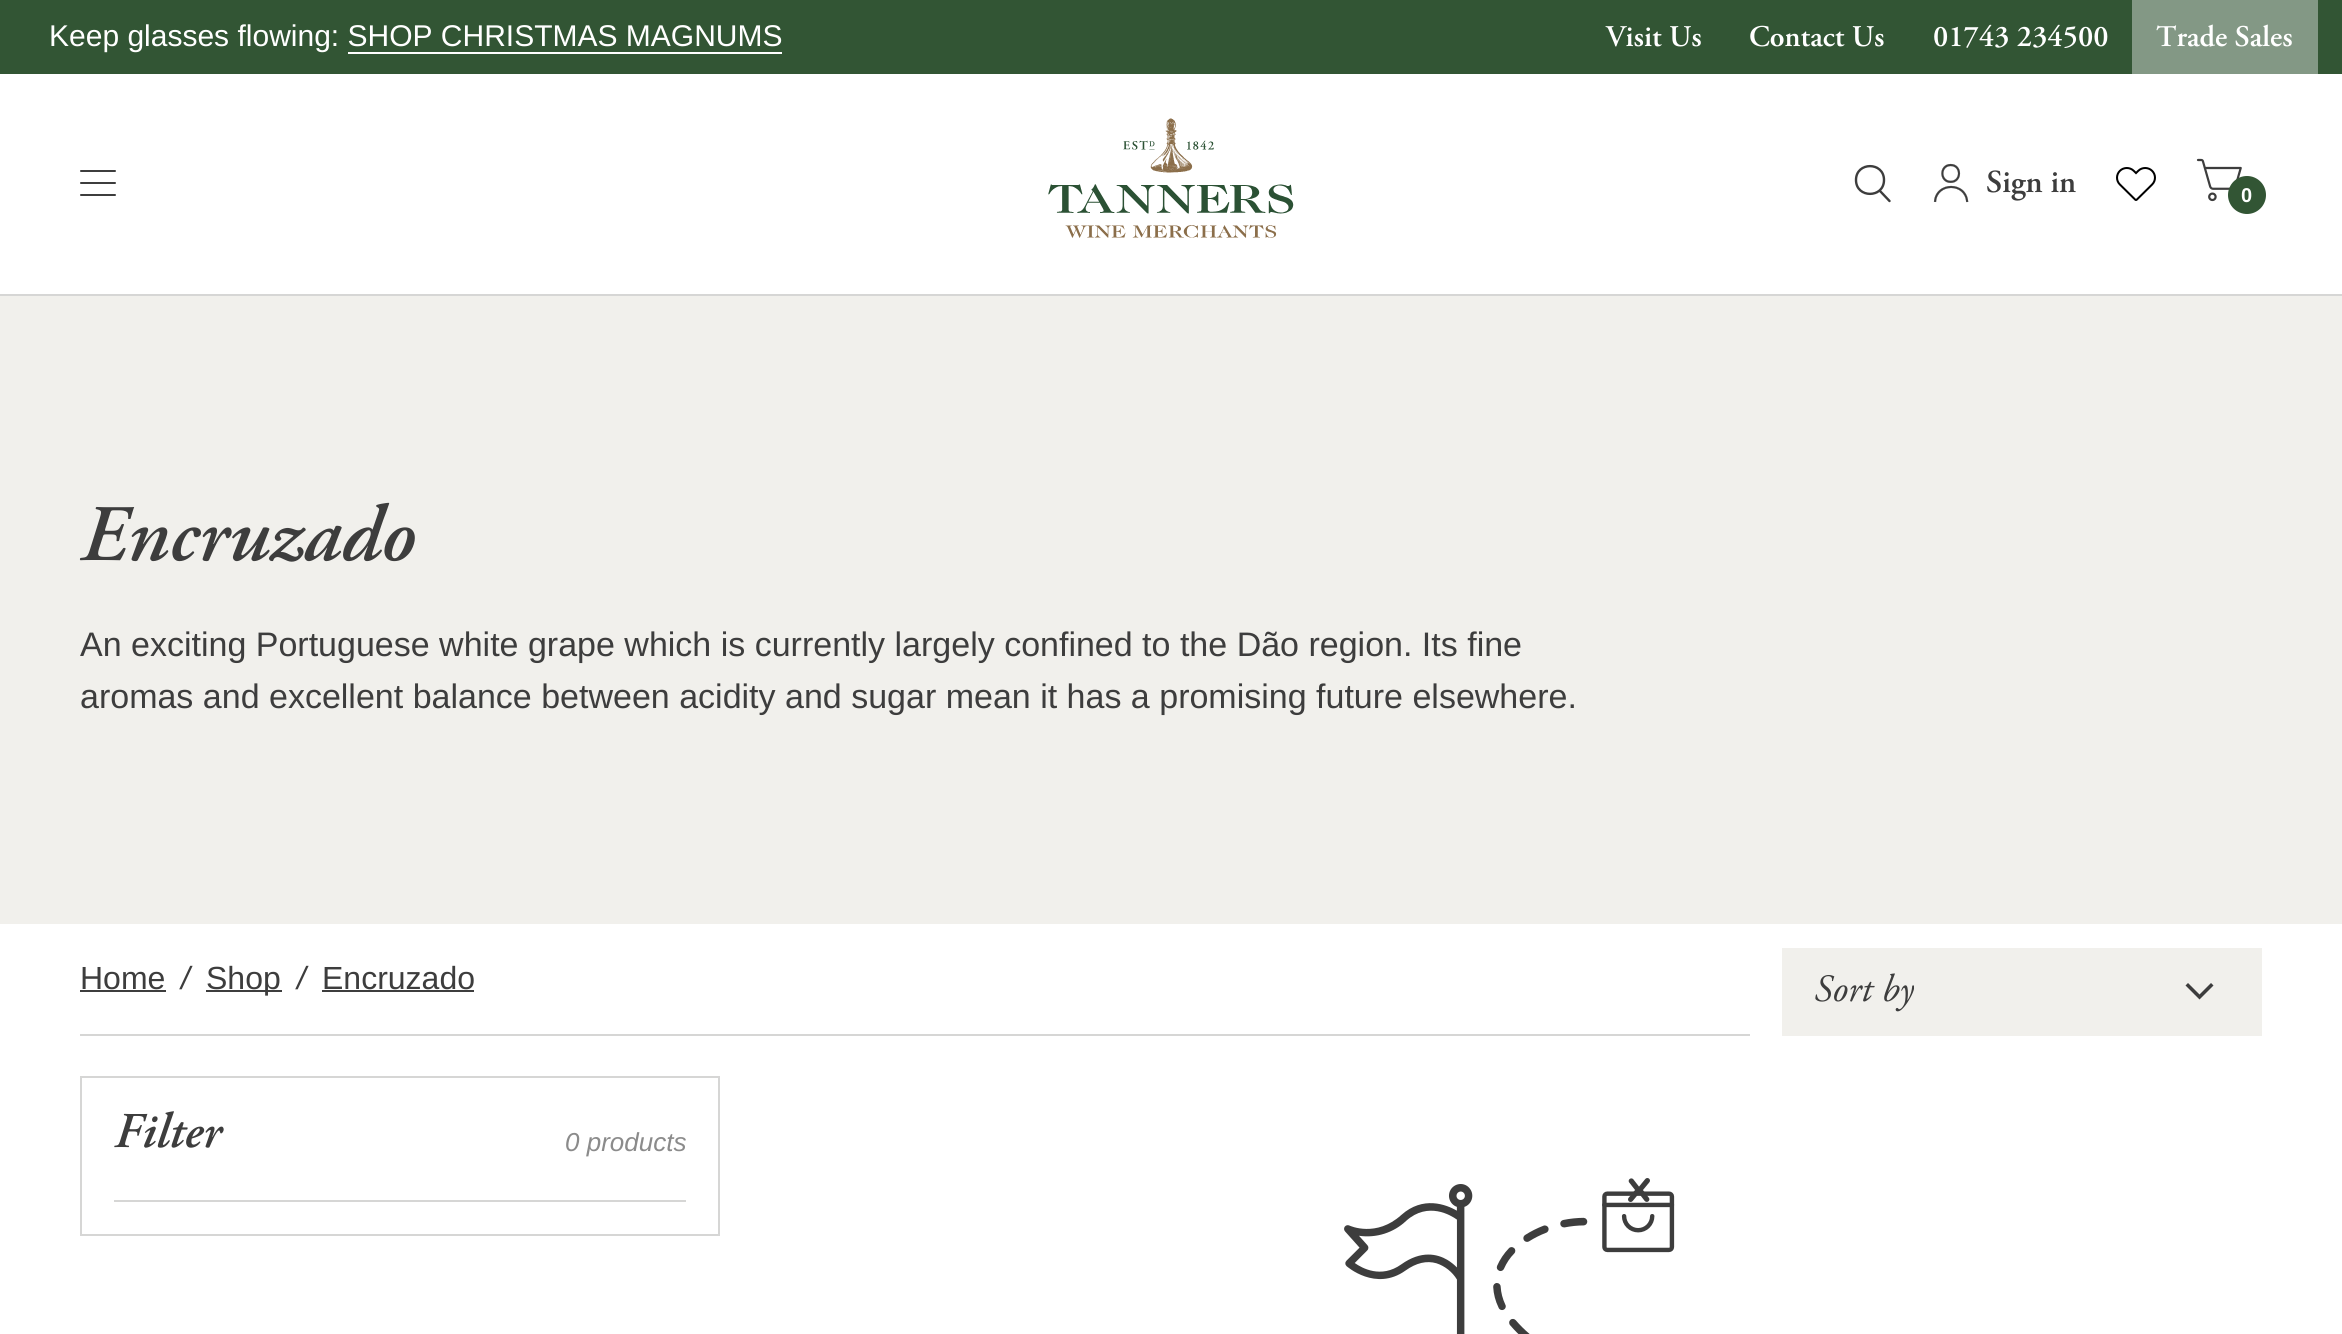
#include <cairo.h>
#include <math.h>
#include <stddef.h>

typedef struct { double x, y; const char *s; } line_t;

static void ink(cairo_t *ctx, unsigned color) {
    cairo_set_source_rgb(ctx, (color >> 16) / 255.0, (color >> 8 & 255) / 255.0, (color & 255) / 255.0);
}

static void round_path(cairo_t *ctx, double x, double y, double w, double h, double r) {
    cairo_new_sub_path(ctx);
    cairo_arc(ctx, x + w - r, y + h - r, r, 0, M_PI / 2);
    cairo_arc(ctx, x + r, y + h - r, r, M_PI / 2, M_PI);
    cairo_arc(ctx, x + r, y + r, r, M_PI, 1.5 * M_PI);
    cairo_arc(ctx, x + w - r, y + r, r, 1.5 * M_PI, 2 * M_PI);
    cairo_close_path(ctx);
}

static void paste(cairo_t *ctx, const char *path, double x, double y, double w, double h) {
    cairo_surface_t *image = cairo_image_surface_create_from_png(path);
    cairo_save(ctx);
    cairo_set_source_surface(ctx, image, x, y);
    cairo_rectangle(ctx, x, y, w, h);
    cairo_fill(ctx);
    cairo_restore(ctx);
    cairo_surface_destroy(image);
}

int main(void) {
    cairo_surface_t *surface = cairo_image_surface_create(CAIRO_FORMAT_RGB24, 2342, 1334);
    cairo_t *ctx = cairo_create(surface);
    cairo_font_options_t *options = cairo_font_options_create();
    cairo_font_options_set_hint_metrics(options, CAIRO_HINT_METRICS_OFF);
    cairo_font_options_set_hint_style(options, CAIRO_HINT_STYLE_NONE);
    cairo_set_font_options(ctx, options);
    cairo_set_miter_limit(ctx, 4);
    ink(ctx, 0xFFFFFF);
    cairo_paint(ctx);
    ink(ctx, 0x325534);
    cairo_rectangle(ctx, 0, 0, 2342, 74);
    cairo_fill(ctx);
    cairo_select_font_face(ctx, "Liberation Sans", CAIRO_FONT_SLANT_NORMAL, CAIRO_FONT_WEIGHT_NORMAL);
    cairo_set_font_size(ctx, 30);
    ink(ctx, 0xFFFFFF);
    cairo_move_to(ctx, 49, 46);
    cairo_show_text(ctx, "Keep glasses flowing: SHOP CHRISTMAS MAGNUMS");
    cairo_rectangle(ctx, 348, 52, 434, 2);
    cairo_fill(ctx);
    cairo_select_font_face(ctx, "Adobe Garamond SemiBold", CAIRO_FONT_SLANT_NORMAL, CAIRO_FONT_WEIGHT_NORMAL);
    {
        static const line_t items[] = {
            {1606, 46, "Visit Us"},
            {1749, 46, "Contact Us"},
            {1933, 46, "01743 234500"},
        };
        for (size_t i = 0; i < sizeof items / sizeof *items; i++) {
            cairo_move_to(ctx, items[i].x, items[i].y);
            cairo_show_text(ctx, items[i].s);
        }
    }
    ink(ctx, 0x839885);
    cairo_rectangle(ctx, 2132, 0, 186, 74);
    cairo_fill(ctx);
    ink(ctx, 0xFFFFFF);
    cairo_move_to(ctx, 2156, 46);
    cairo_show_text(ctx, "Trade Sales");
    ink(ctx, 0xD6D6D5);
    cairo_rectangle(ctx, 0, 294, 2342, 2);
    cairo_fill(ctx);
    ink(ctx, 0x3D3D3D);
    round_path(ctx, 80, 170, 36, 2, 1);
    cairo_fill(ctx);
    round_path(ctx, 80, 182, 36, 2, 1);
    cairo_fill(ctx);
    round_path(ctx, 80, 194, 36, 2, 1);
    cairo_fill(ctx);
    paste(ctx, "media/1.png", 1048, 118, 246, 120);
    cairo_new_path(ctx);
    cairo_move_to(ctx, 1880, 191);
    cairo_line_to(ctx, 1889.5, 201);
    cairo_move_to(ctx, 1884, 180);
    cairo_curve_to(ctx, 1884, 198.5, 1856, 198.5, 1856, 180);
    cairo_curve_to(ctx, 1856, 161.5, 1884, 161.5, 1884, 180);
    cairo_close_path(ctx);
    cairo_set_line_width(ctx, 2.4);
    cairo_set_line_cap(ctx, CAIRO_LINE_CAP_ROUND);
    cairo_set_line_join(ctx, CAIRO_LINE_JOIN_ROUND);
    cairo_stroke(ctx);
    paste(ctx, "media/2.png", 1933, 163, 36, 40);
    cairo_set_font_size(ctx, 32);
    cairo_move_to(ctx, 1986, 192);
    cairo_show_text(ctx, "Sign in");
    paste(ctx, "media/3.png", 2116, 167, 40, 34);
    paste(ctx, "media/4.png", 2196, 158, 46, 44);
    ink(ctx, 0x325534);
    cairo_arc(ctx, 2247, 195, 19, 0, 2 * M_PI);
    cairo_fill(ctx);
    cairo_select_font_face(ctx, "Liberation Sans", CAIRO_FONT_SLANT_NORMAL, CAIRO_FONT_WEIGHT_BOLD);
    cairo_set_font_size(ctx, 20);
    ink(ctx, 0xFFFFFF);
    cairo_move_to(ctx, 2241, 202);
    cairo_show_text(ctx, "0");
    ink(ctx, 0xF1F0EC);
    cairo_rectangle(ctx, 0, 296, 2342, 628);
    cairo_fill(ctx);
    cairo_select_font_face(ctx, "Adobe Garamond SemiBold", CAIRO_FONT_SLANT_ITALIC, CAIRO_FONT_WEIGHT_NORMAL);
    cairo_set_font_size(ctx, 80);
    ink(ctx, 0x3D3D3D);
    cairo_move_to(ctx, 80, 560);
    cairo_show_text(ctx, "Encruzado");
    cairo_select_font_face(ctx, "Liberation Sans", CAIRO_FONT_SLANT_NORMAL, CAIRO_FONT_WEIGHT_NORMAL);
    cairo_set_font_size(ctx, 34);
    cairo_move_to(ctx, 80, 656);
    cairo_show_text(ctx, "An exciting Portuguese white grape which is currently largely confined to the Dão region. Its fine");
    cairo_move_to(ctx, 80, 708);
    cairo_show_text(ctx, "aromas and excellent balance between acidity and sugar mean it has a promising future elsewhere.");
    ink(ctx, 0xD6D6D5);
    cairo_rectangle(ctx, 80, 1034, 1670, 2);
    cairo_fill(ctx);
    cairo_set_font_size(ctx, 32);
    ink(ctx, 0x3D3D3D);
    cairo_move_to(ctx, 80, 989);
    cairo_show_text(ctx, "Home");
    cairo_rectangle(ctx, 80, 990, 86, 2);
    cairo_fill(ctx);
    cairo_select_font_face(ctx, "Liberation Sans", CAIRO_FONT_SLANT_ITALIC, CAIRO_FONT_WEIGHT_NORMAL);
    cairo_move_to(ctx, 181, 989);
    cairo_show_text(ctx, "/");
    cairo_rectangle(ctx, 206, 990, 76, 2);
    cairo_fill(ctx);
    cairo_select_font_face(ctx, "Liberation Sans", CAIRO_FONT_SLANT_NORMAL, CAIRO_FONT_WEIGHT_NORMAL);
    cairo_move_to(ctx, 206, 989);
    cairo_show_text(ctx, "Shop");
    cairo_select_font_face(ctx, "Liberation Sans", CAIRO_FONT_SLANT_ITALIC, CAIRO_FONT_WEIGHT_NORMAL);
    cairo_move_to(ctx, 297, 989);
    cairo_show_text(ctx, "/");
    cairo_select_font_face(ctx, "Liberation Sans", CAIRO_FONT_SLANT_NORMAL, CAIRO_FONT_WEIGHT_NORMAL);
    cairo_move_to(ctx, 322, 989);
    cairo_show_text(ctx, "Encruzado");
    cairo_rectangle(ctx, 322, 990, 152, 2);
    cairo_fill(ctx);
    ink(ctx, 0xF1F0EC);
    cairo_rectangle(ctx, 1782, 948, 480, 88);
    cairo_fill(ctx);
    cairo_select_font_face(ctx, "Adobe Garamond", CAIRO_FONT_SLANT_ITALIC, CAIRO_FONT_WEIGHT_NORMAL);
    cairo_set_font_size(ctx, 38.5);
    ink(ctx, 0x3D3D3D);
    cairo_move_to(ctx, 1814, 1001);
    cairo_show_text(ctx, "Sort by");
    cairo_new_path(ctx);
    cairo_move_to(ctx, 2188, 983);
    cairo_line_to(ctx, 2185.5, 985.5);
    cairo_line_to(ctx, 2199.5, 999.5);
    cairo_line_to(ctx, 2213.5, 985.5);
    cairo_line_to(ctx, 2211, 983);
    cairo_line_to(ctx, 2199.5, 994.5);
    cairo_close_path(ctx);
    cairo_fill(ctx);
    cairo_rectangle(ctx, 81, 1077, 638, 158);
    ink(ctx, 0xD6D6D5);
    cairo_set_line_width(ctx, 2);
    cairo_set_line_cap(ctx, CAIRO_LINE_CAP_BUTT);
    cairo_set_line_join(ctx, CAIRO_LINE_JOIN_MITER);
    cairo_stroke(ctx);
    cairo_rectangle(ctx, 114, 1200, 572, 2);
    cairo_fill(ctx);
    cairo_select_font_face(ctx, "Adobe Garamond SemiBold", CAIRO_FONT_SLANT_ITALIC, CAIRO_FONT_WEIGHT_NORMAL);
    cairo_set_font_size(ctx, 50);
    ink(ctx, 0x3D3D3D);
    cairo_move_to(ctx, 114, 1147);
    cairo_show_text(ctx, "Filter");
    cairo_select_font_face(ctx, "Liberation Sans", CAIRO_FONT_SLANT_ITALIC, CAIRO_FONT_WEIGHT_NORMAL);
    cairo_set_font_size(ctx, 26);
    ink(ctx, 0x8B8B8B);
    cairo_move_to(ctx, 565, 1151);
    cairo_show_text(ctx, "0 products");
    paste(ctx, "media/5.png", 1344, 1178, 331, 156);
    cairo_surface_write_to_png(surface, "image.png");
    cairo_font_options_destroy(options);
    cairo_destroy(ctx);
    cairo_surface_destroy(surface);
    return 0;
}
